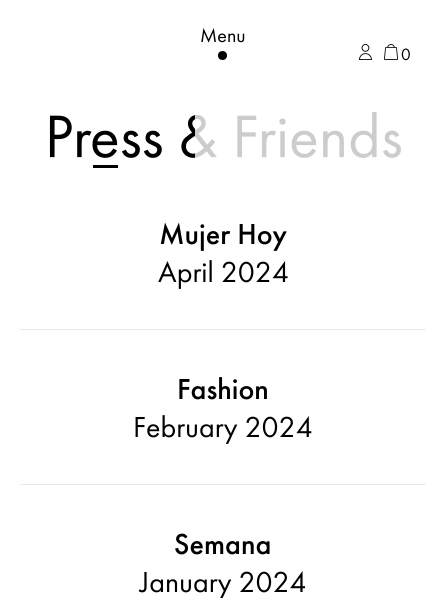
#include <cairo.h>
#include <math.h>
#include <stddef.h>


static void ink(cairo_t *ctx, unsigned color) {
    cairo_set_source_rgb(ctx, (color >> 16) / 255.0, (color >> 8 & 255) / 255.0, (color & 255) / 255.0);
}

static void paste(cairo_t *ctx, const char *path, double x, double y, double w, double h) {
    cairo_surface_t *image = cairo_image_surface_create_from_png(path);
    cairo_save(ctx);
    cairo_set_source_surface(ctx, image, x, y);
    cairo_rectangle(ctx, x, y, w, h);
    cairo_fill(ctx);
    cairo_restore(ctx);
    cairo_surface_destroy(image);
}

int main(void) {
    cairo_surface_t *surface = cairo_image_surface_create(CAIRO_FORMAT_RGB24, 446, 598);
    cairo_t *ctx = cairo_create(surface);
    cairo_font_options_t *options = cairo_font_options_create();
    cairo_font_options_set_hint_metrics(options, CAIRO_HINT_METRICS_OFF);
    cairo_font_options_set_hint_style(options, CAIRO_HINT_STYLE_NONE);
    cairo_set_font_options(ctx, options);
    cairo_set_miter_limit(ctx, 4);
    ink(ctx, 0xFFFFFF);
    cairo_paint(ctx);
    cairo_select_font_face(ctx, "Futura PT", CAIRO_FONT_SLANT_NORMAL, CAIRO_FONT_WEIGHT_NORMAL);
    cairo_set_font_size(ctx, 20);
    ink(ctx, 0x000000);
    cairo_move_to(ctx, 200, 42);
    cairo_show_text(ctx, "Menu");
    cairo_new_path(ctx);
    cairo_arc(ctx, 222.5, 55.5, 4.5, 0, 2 * M_PI);
    cairo_fill(ctx);
    paste(ctx, "media/1.png", 359, 44, 13, 16);
    paste(ctx, "media/2.png", 384, 44, 14, 16);
    cairo_set_font_size(ctx, 17);
    cairo_move_to(ctx, 401, 60);
    cairo_show_text(ctx, "0");
    paste(ctx, "media/3.png", 49, 115, 146, 43);
    cairo_rectangle(ctx, 93, 165, 25, 3);
    cairo_fill(ctx);
    paste(ctx, "media/4.png", 195, 112, 206, 46);
    ink(ctx, 0xEAEAEA);
    cairo_rectangle(ctx, 20, 329, 406, 1);
    cairo_fill(ctx);
    cairo_select_font_face(ctx, "Futura PT Medium", CAIRO_FONT_SLANT_NORMAL, CAIRO_FONT_WEIGHT_NORMAL);
    cairo_set_font_size(ctx, 30);
    ink(ctx, 0x000000);
    cairo_move_to(ctx, 159, 244);
    cairo_show_text(ctx, "Mujer Hoy");
    cairo_select_font_face(ctx, "Futura PT", CAIRO_FONT_SLANT_NORMAL, CAIRO_FONT_WEIGHT_NORMAL);
    cairo_move_to(ctx, 158, 282);
    cairo_show_text(ctx, "April 2024");
    ink(ctx, 0xEAEAEA);
    cairo_rectangle(ctx, 20, 484, 406, 1);
    cairo_fill(ctx);
    cairo_select_font_face(ctx, "Futura PT Medium", CAIRO_FONT_SLANT_NORMAL, CAIRO_FONT_WEIGHT_NORMAL);
    ink(ctx, 0x000000);
    cairo_move_to(ctx, 177, 399);
    cairo_show_text(ctx, "Fashion");
    cairo_select_font_face(ctx, "Futura PT", CAIRO_FONT_SLANT_NORMAL, CAIRO_FONT_WEIGHT_NORMAL);
    cairo_move_to(ctx, 133, 437);
    cairo_show_text(ctx, "February 2024");
    cairo_select_font_face(ctx, "Futura PT Medium", CAIRO_FONT_SLANT_NORMAL, CAIRO_FONT_WEIGHT_NORMAL);
    cairo_move_to(ctx, 174, 554);
    cairo_show_text(ctx, "Semana");
    cairo_select_font_face(ctx, "Futura PT", CAIRO_FONT_SLANT_NORMAL, CAIRO_FONT_WEIGHT_NORMAL);
    cairo_move_to(ctx, 140, 592);
    cairo_show_text(ctx, "January 2024");
    cairo_surface_write_to_png(surface, "image.png");
    cairo_font_options_destroy(options);
    cairo_destroy(ctx);
    cairo_surface_destroy(surface);
    return 0;
}
